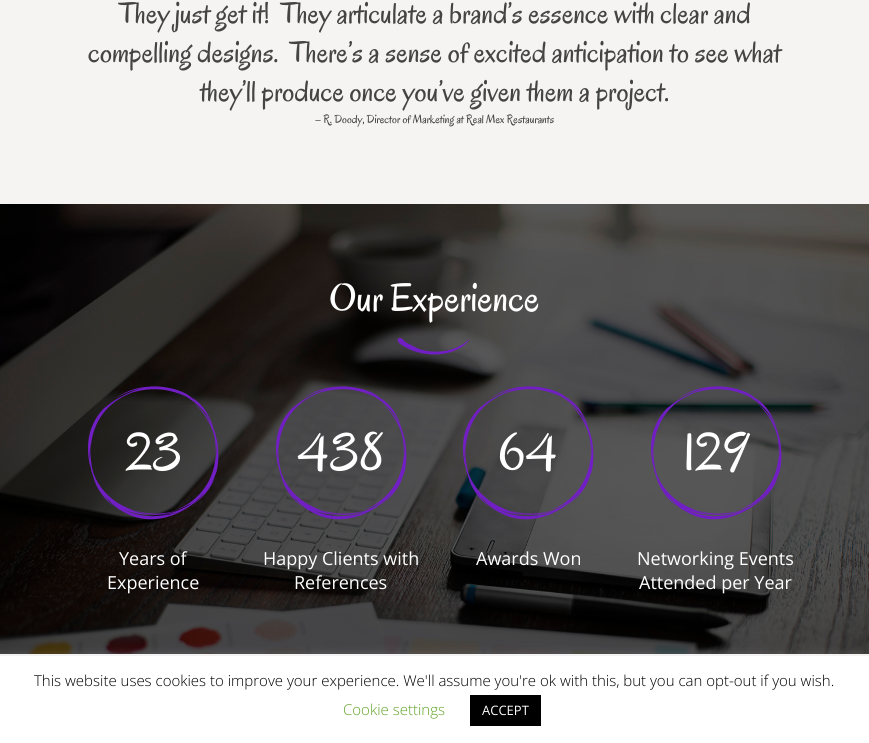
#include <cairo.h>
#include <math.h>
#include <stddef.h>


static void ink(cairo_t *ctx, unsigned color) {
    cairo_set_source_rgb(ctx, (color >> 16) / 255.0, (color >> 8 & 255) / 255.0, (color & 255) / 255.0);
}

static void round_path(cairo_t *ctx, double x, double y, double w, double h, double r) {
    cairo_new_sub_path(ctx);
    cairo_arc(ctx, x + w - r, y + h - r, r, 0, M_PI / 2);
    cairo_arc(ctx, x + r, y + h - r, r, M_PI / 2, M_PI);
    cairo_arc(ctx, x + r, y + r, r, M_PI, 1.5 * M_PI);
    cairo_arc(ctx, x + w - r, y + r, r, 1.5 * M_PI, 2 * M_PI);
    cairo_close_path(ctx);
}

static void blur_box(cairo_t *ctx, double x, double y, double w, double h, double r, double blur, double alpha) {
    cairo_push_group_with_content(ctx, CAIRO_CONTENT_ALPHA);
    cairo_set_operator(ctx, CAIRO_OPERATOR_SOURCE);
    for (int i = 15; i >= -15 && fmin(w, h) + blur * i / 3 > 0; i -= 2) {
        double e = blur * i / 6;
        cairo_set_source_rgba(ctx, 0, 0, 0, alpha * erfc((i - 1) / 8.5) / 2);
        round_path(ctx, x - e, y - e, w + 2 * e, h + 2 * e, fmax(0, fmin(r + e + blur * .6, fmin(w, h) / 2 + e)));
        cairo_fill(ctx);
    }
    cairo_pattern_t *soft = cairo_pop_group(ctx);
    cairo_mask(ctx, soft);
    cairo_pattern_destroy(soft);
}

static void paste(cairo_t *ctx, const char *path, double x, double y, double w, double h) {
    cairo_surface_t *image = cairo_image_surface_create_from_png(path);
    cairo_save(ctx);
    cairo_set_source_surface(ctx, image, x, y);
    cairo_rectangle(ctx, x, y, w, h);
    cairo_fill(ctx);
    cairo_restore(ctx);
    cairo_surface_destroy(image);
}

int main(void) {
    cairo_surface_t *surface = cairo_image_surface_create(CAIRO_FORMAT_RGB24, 869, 743);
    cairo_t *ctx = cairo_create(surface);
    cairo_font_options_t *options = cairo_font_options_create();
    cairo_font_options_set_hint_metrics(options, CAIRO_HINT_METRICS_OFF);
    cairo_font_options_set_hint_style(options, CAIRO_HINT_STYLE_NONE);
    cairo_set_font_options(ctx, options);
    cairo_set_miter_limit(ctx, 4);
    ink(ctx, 0xFFFFFF);
    cairo_paint(ctx);
    ink(ctx, 0xF5F4F3);
    cairo_rectangle(ctx, 0, 0, 869, 204);
    cairo_fill(ctx);
    cairo_select_font_face(ctx, "Oregano", CAIRO_FONT_SLANT_NORMAL, CAIRO_FONT_WEIGHT_NORMAL);
    cairo_set_font_size(ctx, 30);
    ink(ctx, 0x444444);
    cairo_move_to(ctx, 119, 23);
    cairo_show_text(ctx, "They just get it!  They articulate a brand’s essence with clear and");
    cairo_move_to(ctx, 88, 62);
    cairo_show_text(ctx, "compelling designs.  There’s a sense of excited anticipation to see what");
    ink(ctx, 0xF5F4F3);
    cairo_new_path(ctx);
    cairo_arc(ctx, 434.5, 157.5, 69.5, 0, 2 * M_PI);
    cairo_fill(ctx);
    ink(ctx, 0x444444);
    cairo_move_to(ctx, 200, 101);
    cairo_show_text(ctx, "they’ll produce once you’ve given them a project.");
    cairo_set_font_size(ctx, 12);
    cairo_move_to(ctx, 315, 123);
    cairo_show_text(ctx, "– R. Doody, Director of Marketing at Real Mex Restaurants");
    paste(ctx, "media/1.png", 0, 204, 869, 450);
    cairo_set_font_size(ctx, 40);
    ink(ctx, 0xFFFFFF);
    cairo_move_to(ctx, 329, 311);
    cairo_show_text(ctx, "Our Experience");
    ink(ctx, 0x711FC4);
    cairo_new_path(ctx);
    cairo_move_to(ctx, 466, 342);
    cairo_curve_to(ctx, 453, 352, 435, 354, 419, 349);
    cairo_line_to(ctx, 409, 344);
    cairo_line_to(ctx, 405, 342);
    cairo_curve_to(ctx, 404, 340, 400, 336, 398, 339);
    cairo_curve_to(ctx, 396, 343, 404, 346, 405, 347);
    cairo_curve_to(ctx, 424, 358, 456, 358, 470, 339);
    cairo_close_path(ctx);
    cairo_fill(ctx);
    cairo_set_font_size(ctx, 55);
    ink(ctx, 0xFFFFFF);
    cairo_move_to(ctx, 125, 470);
    cairo_show_text(ctx, "23");
    paste(ctx, "media/2.png", 88, 386, 131, 134);
    cairo_select_font_face(ctx, "Open Sans", CAIRO_FONT_SLANT_NORMAL, CAIRO_FONT_WEIGHT_NORMAL);
    cairo_set_font_size(ctx, 18);
    cairo_move_to(ctx, 119, 565);
    cairo_show_text(ctx, "Years of");
    cairo_move_to(ctx, 107, 589);
    cairo_show_text(ctx, "Experience");
    cairo_select_font_face(ctx, "Oregano", CAIRO_FONT_SLANT_NORMAL, CAIRO_FONT_WEIGHT_NORMAL);
    cairo_set_font_size(ctx, 55);
    cairo_move_to(ctx, 297, 470);
    cairo_show_text(ctx, "438");
    paste(ctx, "media/3.png", 276, 386, 131, 134);
    cairo_select_font_face(ctx, "Open Sans", CAIRO_FONT_SLANT_NORMAL, CAIRO_FONT_WEIGHT_NORMAL);
    cairo_set_font_size(ctx, 18);
    cairo_move_to(ctx, 263, 565);
    cairo_show_text(ctx, "Happy Clients with");
    cairo_move_to(ctx, 294, 589);
    cairo_show_text(ctx, "References");
    cairo_select_font_face(ctx, "Oregano", CAIRO_FONT_SLANT_NORMAL, CAIRO_FONT_WEIGHT_NORMAL);
    cairo_set_font_size(ctx, 55);
    cairo_move_to(ctx, 498, 470);
    cairo_show_text(ctx, "64");
    paste(ctx, "media/4.png", 463, 386, 131, 134);
    cairo_select_font_face(ctx, "Open Sans", CAIRO_FONT_SLANT_NORMAL, CAIRO_FONT_WEIGHT_NORMAL);
    cairo_set_font_size(ctx, 18);
    cairo_move_to(ctx, 476, 565);
    cairo_show_text(ctx, "Awards Won");
    cairo_select_font_face(ctx, "Oregano", CAIRO_FONT_SLANT_NORMAL, CAIRO_FONT_WEIGHT_NORMAL);
    cairo_set_font_size(ctx, 55);
    cairo_move_to(ctx, 683, 470);
    cairo_show_text(ctx, "129");
    paste(ctx, "media/5.png", 651, 386, 131, 134);
    cairo_select_font_face(ctx, "Open Sans", CAIRO_FONT_SLANT_NORMAL, CAIRO_FONT_WEIGHT_NORMAL);
    cairo_set_font_size(ctx, 18);
    cairo_move_to(ctx, 637, 565);
    cairo_show_text(ctx, "Networking Events");
    cairo_move_to(ctx, 639, 589);
    cairo_show_text(ctx, "Attended per Year");
    ink(ctx, 0xACABAB);
    blur_box(ctx, 0, 655, 869, 87, 0, 5, 0.3);
    ink(ctx, 0xFFFFFF);
    cairo_rectangle(ctx, 0, 656, 869, 87);
    cairo_fill(ctx);
    cairo_select_font_face(ctx, "Open Sans Light", CAIRO_FONT_SLANT_NORMAL, CAIRO_FONT_WEIGHT_NORMAL);
    cairo_set_font_size(ctx, 15);
    ink(ctx, 0x000000);
    cairo_move_to(ctx, 34, 686);
    cairo_show_text(ctx, "This website uses cookies to improve your experience. We'll assume you're ok with this, but you can opt-out if you wish.");
    ink(ctx, 0x62A329);
    cairo_move_to(ctx, 343, 715);
    cairo_show_text(ctx, "Cookie settings");
    ink(ctx, 0x000000);
    cairo_rectangle(ctx, 470, 695, 71, 31);
    cairo_fill(ctx);
    cairo_select_font_face(ctx, "Open Sans", CAIRO_FONT_SLANT_NORMAL, CAIRO_FONT_WEIGHT_NORMAL);
    cairo_set_font_size(ctx, 13);
    ink(ctx, 0xFFFFFF);
    cairo_move_to(ctx, 482, 715);
    cairo_show_text(ctx, "ACCEPT");
    cairo_surface_write_to_png(surface, "image.png");
    cairo_font_options_destroy(options);
    cairo_destroy(ctx);
    cairo_surface_destroy(surface);
    return 0;
}
